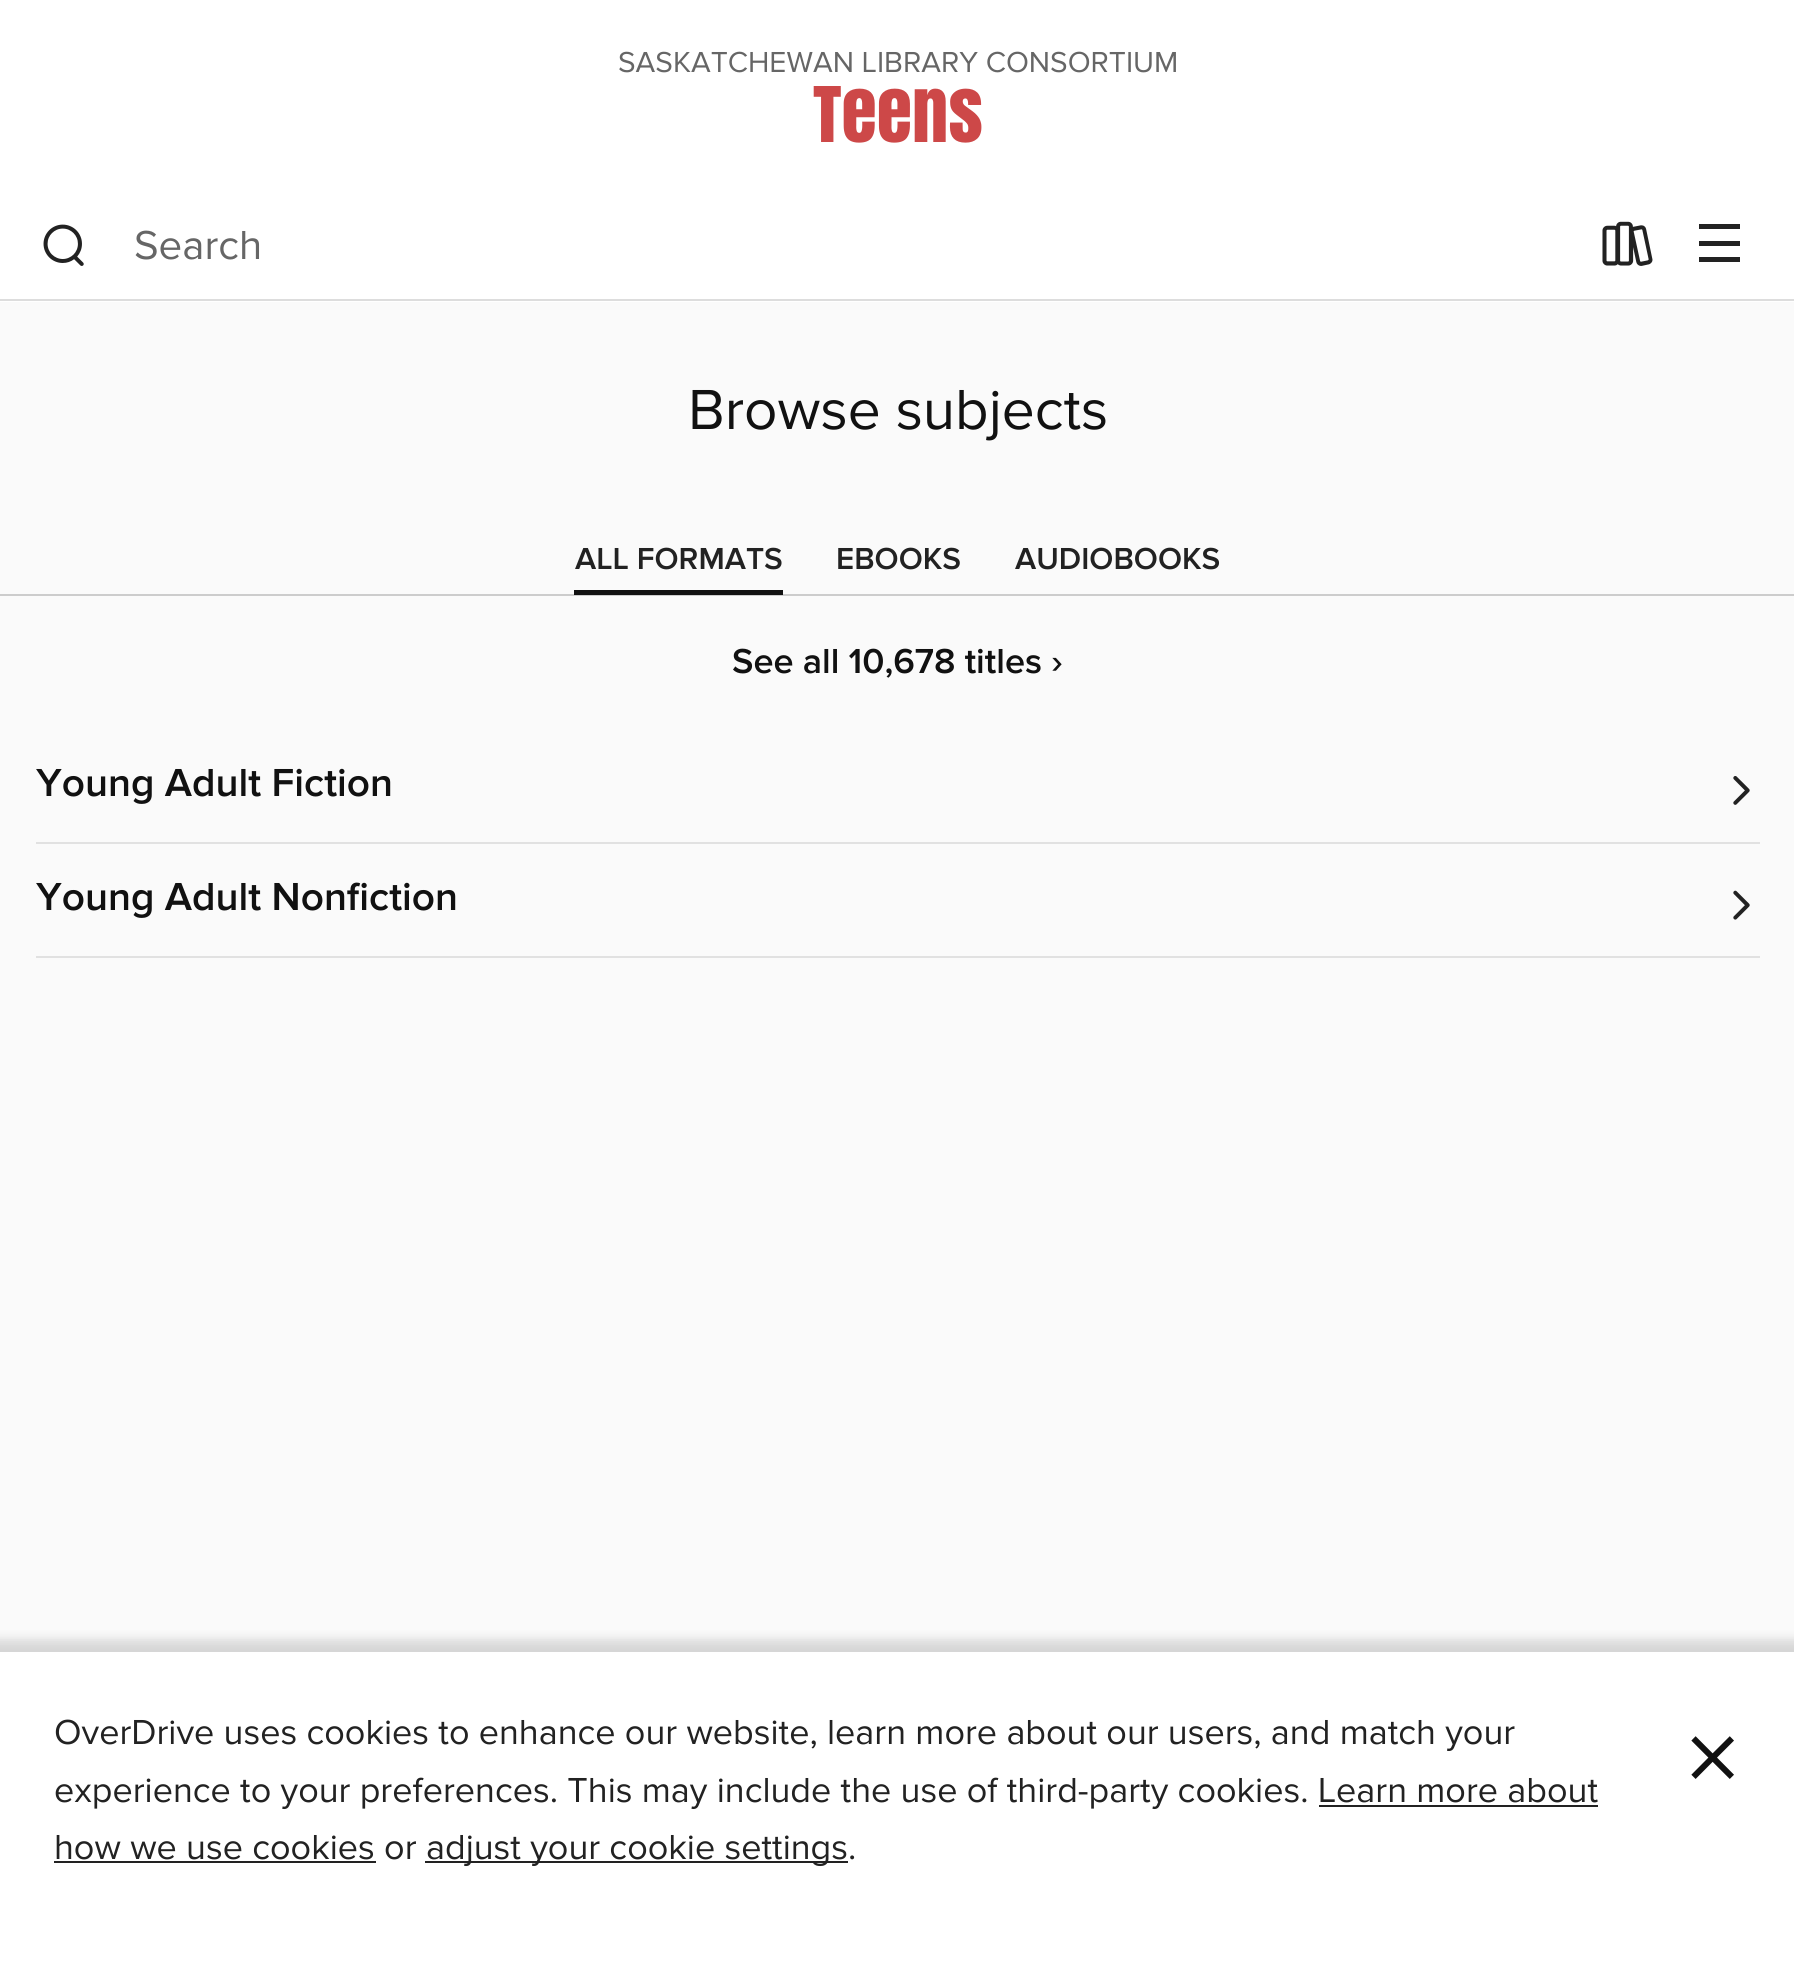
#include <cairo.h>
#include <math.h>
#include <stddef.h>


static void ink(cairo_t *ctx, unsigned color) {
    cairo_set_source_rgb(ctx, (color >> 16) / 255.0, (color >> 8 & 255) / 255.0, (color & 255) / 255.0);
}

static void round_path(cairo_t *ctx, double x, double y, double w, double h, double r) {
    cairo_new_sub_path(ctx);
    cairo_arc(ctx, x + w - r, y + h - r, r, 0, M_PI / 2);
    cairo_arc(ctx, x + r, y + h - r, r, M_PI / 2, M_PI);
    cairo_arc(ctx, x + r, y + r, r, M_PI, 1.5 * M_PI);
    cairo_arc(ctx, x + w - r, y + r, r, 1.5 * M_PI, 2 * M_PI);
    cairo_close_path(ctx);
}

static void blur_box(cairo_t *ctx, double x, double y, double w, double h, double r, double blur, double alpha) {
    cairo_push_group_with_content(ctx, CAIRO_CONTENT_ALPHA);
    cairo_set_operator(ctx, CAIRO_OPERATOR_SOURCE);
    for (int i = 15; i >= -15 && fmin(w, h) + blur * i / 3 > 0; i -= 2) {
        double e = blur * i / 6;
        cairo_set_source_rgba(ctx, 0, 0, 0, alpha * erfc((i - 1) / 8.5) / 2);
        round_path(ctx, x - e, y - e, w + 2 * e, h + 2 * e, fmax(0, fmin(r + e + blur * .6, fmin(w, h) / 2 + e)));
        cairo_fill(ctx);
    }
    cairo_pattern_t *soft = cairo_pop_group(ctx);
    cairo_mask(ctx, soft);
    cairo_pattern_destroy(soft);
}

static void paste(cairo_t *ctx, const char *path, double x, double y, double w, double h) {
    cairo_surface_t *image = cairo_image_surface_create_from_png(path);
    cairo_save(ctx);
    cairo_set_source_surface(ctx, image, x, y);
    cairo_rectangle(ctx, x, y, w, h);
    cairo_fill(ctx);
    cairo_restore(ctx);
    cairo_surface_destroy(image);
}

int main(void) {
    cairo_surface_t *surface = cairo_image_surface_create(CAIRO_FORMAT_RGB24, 1794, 1976);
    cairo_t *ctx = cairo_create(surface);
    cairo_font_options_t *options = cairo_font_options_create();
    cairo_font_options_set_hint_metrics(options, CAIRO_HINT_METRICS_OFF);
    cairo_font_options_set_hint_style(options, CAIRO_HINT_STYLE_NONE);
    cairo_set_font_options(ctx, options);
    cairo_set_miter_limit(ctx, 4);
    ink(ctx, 0xFAFAFA);
    cairo_paint(ctx);
    ink(ctx, 0xFFFFFF);
    cairo_rectangle(ctx, 0, 0, 1794, 302);
    cairo_fill(ctx);
    cairo_select_font_face(ctx, "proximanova", CAIRO_FONT_SLANT_NORMAL, CAIRO_FONT_WEIGHT_NORMAL);
    cairo_set_font_size(ctx, 30);
    ink(ctx, 0x666666);
    cairo_move_to(ctx, 618, 72);
    cairo_show_text(ctx, "SASKATCHEWAN LIBRARY CONSORTIUM");
    cairo_select_font_face(ctx, "Anton", CAIRO_FONT_SLANT_NORMAL, CAIRO_FONT_WEIGHT_NORMAL);
    cairo_set_font_size(ctx, 72);
    ink(ctx, 0xCD4848);
    cairo_move_to(ctx, 813, 142);
    cairo_show_text(ctx, "Teens");
    ink(ctx, 0xDDDDDD);
    cairo_rectangle(ctx, 0, 299, 1794, 2);
    cairo_fill(ctx);
    paste(ctx, "media/1.png", 43, 224, 41, 42);
    cairo_select_font_face(ctx, "proximanova", CAIRO_FONT_SLANT_NORMAL, CAIRO_FONT_WEIGHT_NORMAL);
    cairo_set_font_size(ctx, 42);
    ink(ctx, 0x666666);
    cairo_move_to(ctx, 134, 259);
    cairo_show_text(ctx, "Search");
    paste(ctx, "media/2.png", 1602, 221, 51, 45);
    ink(ctx, 0x222222);
    cairo_new_path(ctx);
    cairo_move_to(ctx, 1699, 224);
    cairo_line_to(ctx, 1699, 229);
    cairo_line_to(ctx, 1740, 229);
    cairo_line_to(ctx, 1740, 224);
    cairo_close_path(ctx);
    cairo_move_to(ctx, 1699, 246);
    cairo_line_to(ctx, 1740, 246);
    cairo_line_to(ctx, 1740, 241);
    cairo_line_to(ctx, 1699, 241);
    cairo_close_path(ctx);
    cairo_move_to(ctx, 1699, 262);
    cairo_line_to(ctx, 1740, 262);
    cairo_line_to(ctx, 1740, 257);
    cairo_line_to(ctx, 1699, 257);
    cairo_close_path(ctx);
    cairo_fill(ctx);
    cairo_set_font_size(ctx, 58.5);
    ink(ctx, 0x111111);
    cairo_move_to(ctx, 688, 429);
    cairo_show_text(ctx, "Browse subjects");
    ink(ctx, 0xCCCCCC);
    cairo_rectangle(ctx, 0, 594, 1794, 2);
    cairo_fill(ctx);
    cairo_select_font_face(ctx, "Proxima Nova SemiBold", CAIRO_FONT_SLANT_NORMAL, CAIRO_FONT_WEIGHT_NORMAL);
    cairo_set_font_size(ctx, 31.5);
    ink(ctx, 0x222222);
    cairo_move_to(ctx, 575, 569);
    cairo_show_text(ctx, "ALL FORMATS");
    ink(ctx, 0x111111);
    cairo_rectangle(ctx, 574, 590, 209, 5);
    cairo_fill(ctx);
    ink(ctx, 0x222222);
    cairo_move_to(ctx, 836, 569);
    cairo_show_text(ctx, "EBOOKS");
    cairo_move_to(ctx, 1015, 569);
    cairo_show_text(ctx, "AUDIOBOOKS");
    cairo_set_font_size(ctx, 36);
    ink(ctx, 0x111111);
    cairo_move_to(ctx, 732, 673);
    cairo_show_text(ctx, "See all 10,678 titles ›");
    ink(ctx, 0xE1E1E1);
    cairo_rectangle(ctx, 36, 842, 1724, 2);
    cairo_fill(ctx);
    cairo_set_font_size(ctx, 40.5);
    ink(ctx, 0x111111);
    cairo_move_to(ctx, 36, 796);
    cairo_show_text(ctx, "Young Adult Fiction");
    paste(ctx, "media/3.png", 1733, 776, 17, 29);
    ink(ctx, 0xE1E1E1);
    cairo_rectangle(ctx, 36, 956, 1724, 2);
    cairo_fill(ctx);
    ink(ctx, 0x111111);
    cairo_move_to(ctx, 36, 910);
    cairo_show_text(ctx, "Young Adult Nonfiction");
    paste(ctx, "media/4.png", 1733, 890, 17, 30);
    ink(ctx, 0x000000);
    blur_box(ctx, -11, 1640, 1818, 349, 0, 5.5, 0.15);
    ink(ctx, 0xFFFFFF);
    cairo_rectangle(ctx, 0, 1652, 1794, 324);
    cairo_fill(ctx);
    cairo_select_font_face(ctx, "proximanova", CAIRO_FONT_SLANT_NORMAL, CAIRO_FONT_WEIGHT_NORMAL);
    cairo_set_font_size(ctx, 36);
    ink(ctx, 0x222222);
    cairo_move_to(ctx, 54, 1744);
    cairo_show_text(ctx, "OverDrive uses cookies to enhance our website, learn more about our users, and match your");
    cairo_move_to(ctx, 54, 1802);
    cairo_show_text(ctx, "experience to your preferences. This may include the use of third-party cookies. Learn more about");
    cairo_rectangle(ctx, 1319, 1805, 279, 2);
    cairo_fill(ctx);
    cairo_move_to(ctx, 54, 1859);
    cairo_show_text(ctx, "how we use cookies or");
    cairo_rectangle(ctx, 54, 1861, 322, 2);
    cairo_fill(ctx);
    cairo_rectangle(ctx, 425, 1861, 423, 2);
    cairo_fill(ctx);
    cairo_move_to(ctx, 426, 1859);
    cairo_show_text(ctx, "adjust your cookie settings.");
    cairo_set_font_size(ctx, 115);
    ink(ctx, 0x111111);
    cairo_move_to(ctx, 1684, 1796);
    cairo_show_text(ctx, "×");
    cairo_surface_write_to_png(surface, "image.png");
    cairo_font_options_destroy(options);
    cairo_destroy(ctx);
    cairo_surface_destroy(surface);
    return 0;
}
